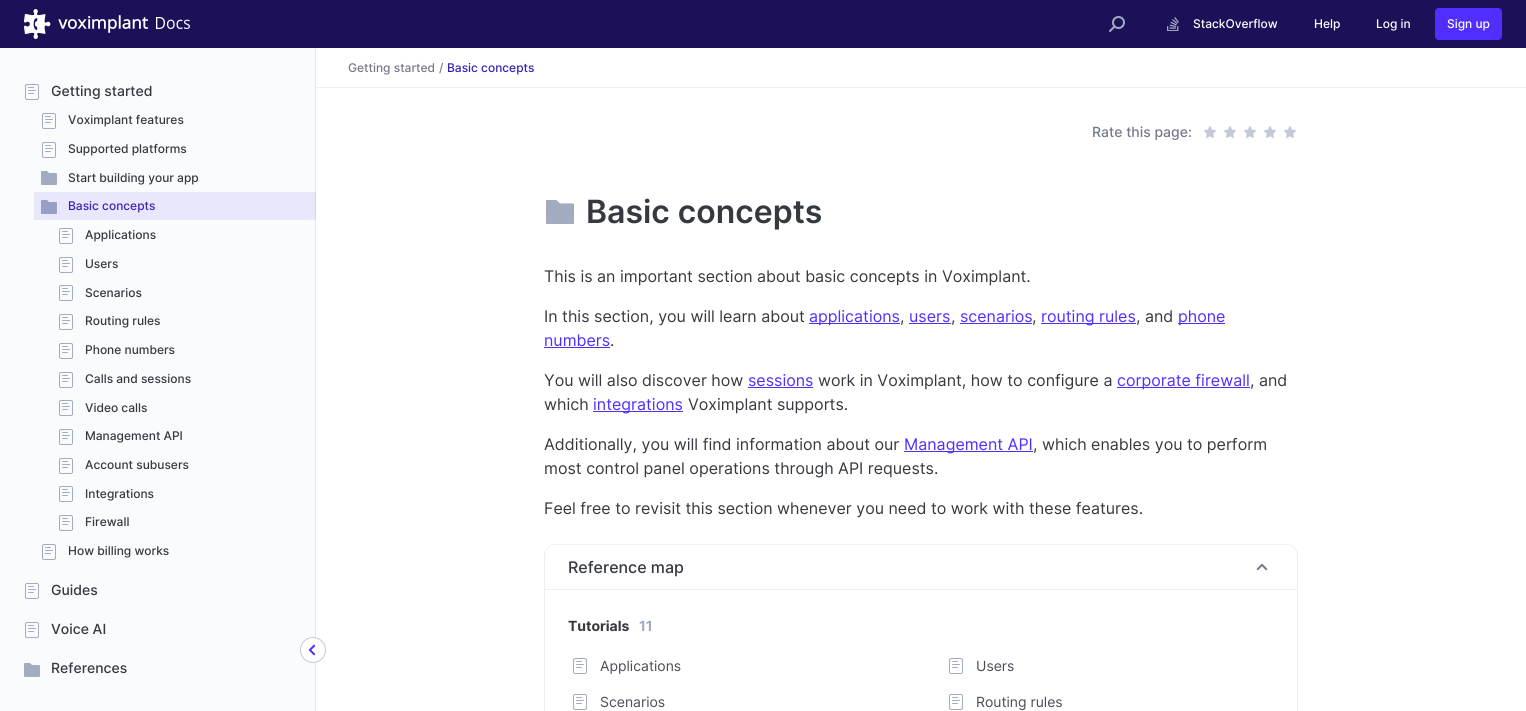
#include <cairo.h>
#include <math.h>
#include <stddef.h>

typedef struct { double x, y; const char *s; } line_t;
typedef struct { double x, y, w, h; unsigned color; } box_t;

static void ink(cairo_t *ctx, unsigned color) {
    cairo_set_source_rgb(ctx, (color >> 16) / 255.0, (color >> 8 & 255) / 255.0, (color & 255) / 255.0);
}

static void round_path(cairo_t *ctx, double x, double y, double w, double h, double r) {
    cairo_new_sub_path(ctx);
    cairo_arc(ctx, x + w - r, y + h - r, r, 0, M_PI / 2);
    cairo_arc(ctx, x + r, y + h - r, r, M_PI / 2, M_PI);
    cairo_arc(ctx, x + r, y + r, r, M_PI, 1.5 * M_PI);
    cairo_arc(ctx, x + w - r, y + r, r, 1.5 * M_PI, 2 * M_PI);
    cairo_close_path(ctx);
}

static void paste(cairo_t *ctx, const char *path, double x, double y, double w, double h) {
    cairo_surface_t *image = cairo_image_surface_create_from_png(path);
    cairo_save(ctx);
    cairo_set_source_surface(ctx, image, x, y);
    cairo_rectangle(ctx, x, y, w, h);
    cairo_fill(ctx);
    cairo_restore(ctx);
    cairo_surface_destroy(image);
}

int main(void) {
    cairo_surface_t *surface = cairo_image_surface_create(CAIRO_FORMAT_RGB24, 1526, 711);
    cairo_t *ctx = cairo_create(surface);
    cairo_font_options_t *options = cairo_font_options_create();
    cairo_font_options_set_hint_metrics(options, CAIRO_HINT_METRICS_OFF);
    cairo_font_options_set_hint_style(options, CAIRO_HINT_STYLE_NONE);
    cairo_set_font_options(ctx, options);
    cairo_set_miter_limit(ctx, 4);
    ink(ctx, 0xFFFFFF);
    cairo_paint(ctx);
    ink(ctx, 0x1C1059);
    cairo_rectangle(ctx, 0, 0, 1526, 48);
    cairo_fill(ctx);
    paste(ctx, "media/1.png", 24, 9, 166, 30);
    paste(ctx, "media/2.png", 1109, 16, 16, 16);
    paste(ctx, "media/3.png", 1167, 17, 12, 14);
    cairo_select_font_face(ctx, "Inter Medium", CAIRO_FONT_SLANT_NORMAL, CAIRO_FONT_WEIGHT_NORMAL);
    cairo_set_font_size(ctx, 12);
    ink(ctx, 0xFFFFFF);
    {
        static const line_t items[] = {
            {1193, 28, "StackOverflow"},
            {1314, 28, "Help"},
            {1376, 28, "Log in"},
        };
        for (size_t i = 0; i < sizeof items / sizeof *items; i++) {
            cairo_move_to(ctx, items[i].x, items[i].y);
            cairo_show_text(ctx, items[i].s);
        }
    }
    ink(ctx, 0x512EFF);
    round_path(ctx, 1435, 8, 67, 32, 4);
    cairo_fill(ctx);
    ink(ctx, 0xFFFFFF);
    cairo_move_to(ctx, 1447, 28);
    cairo_show_text(ctx, "Sign up");
    {
        static const box_t items[] = {
            {0, 48, 315, 663, 0xFAFBFC},
            {34, 192, 281, 28, 0xE9E7FC},
            {315, 48, 1, 663, 0xE2E6EA},
            {315, 192, 1, 28, 0xD4D4EC},
        };
        for (size_t i = 0; i < sizeof items / sizeof *items; i++) {
            ink(ctx, items[i].color);
            cairo_rectangle(ctx, items[i].x, items[i].y, items[i].w, items[i].h);
            cairo_fill(ctx);
        }
    }
    paste(ctx, "media/4.png", 25, 84, 14, 16);
    cairo_set_font_size(ctx, 14);
    ink(ctx, 0x343A40);
    cairo_move_to(ctx, 51, 96);
    cairo_show_text(ctx, "Getting started");
    paste(ctx, "media/4.png", 42, 113, 14, 16);
    cairo_set_font_size(ctx, 12);
    cairo_move_to(ctx, 68, 124);
    cairo_show_text(ctx, "Voximplant features");
    paste(ctx, "media/4.png", 42, 142, 14, 16);
    cairo_move_to(ctx, 68, 153);
    cairo_show_text(ctx, "Supported platforms");
    paste(ctx, "media/5.png", 41, 171, 16, 14);
    cairo_move_to(ctx, 68, 182);
    cairo_show_text(ctx, "Start building your app");
    paste(ctx, "media/6.png", 41, 200, 16, 14);
    ink(ctx, 0x3B21BA);
    cairo_move_to(ctx, 68, 210);
    cairo_show_text(ctx, "Basic concepts");
    paste(ctx, "media/4.png", 59, 228, 14, 16);
    ink(ctx, 0x343A40);
    cairo_move_to(ctx, 85, 239);
    cairo_show_text(ctx, "Applications");
    paste(ctx, "media/4.png", 59, 257, 14, 16);
    cairo_move_to(ctx, 85, 268);
    cairo_show_text(ctx, "Users");
    paste(ctx, "media/4.png", 59, 285, 14, 16);
    cairo_move_to(ctx, 85, 297);
    cairo_show_text(ctx, "Scenarios");
    paste(ctx, "media/4.png", 59, 314, 14, 16);
    cairo_move_to(ctx, 85, 325);
    cairo_show_text(ctx, "Routing rules");
    paste(ctx, "media/4.png", 59, 343, 14, 16);
    cairo_move_to(ctx, 85, 354);
    cairo_show_text(ctx, "Phone numbers");
    paste(ctx, "media/4.png", 59, 372, 14, 16);
    cairo_move_to(ctx, 85, 383);
    cairo_show_text(ctx, "Calls and sessions");
    paste(ctx, "media/4.png", 59, 400, 14, 16);
    cairo_move_to(ctx, 85, 412);
    cairo_show_text(ctx, "Video calls");
    paste(ctx, "media/4.png", 59, 429, 14, 16);
    cairo_move_to(ctx, 85, 440);
    cairo_show_text(ctx, "Management API");
    paste(ctx, "media/4.png", 59, 458, 14, 16);
    cairo_move_to(ctx, 85, 469);
    cairo_show_text(ctx, "Account subusers");
    paste(ctx, "media/4.png", 59, 486, 14, 16);
    cairo_move_to(ctx, 85, 498);
    cairo_show_text(ctx, "Integrations");
    paste(ctx, "media/4.png", 59, 515, 14, 16);
    cairo_move_to(ctx, 85, 526);
    cairo_show_text(ctx, "Firewall");
    paste(ctx, "media/4.png", 42, 544, 14, 16);
    cairo_move_to(ctx, 68, 555);
    cairo_show_text(ctx, "How billing works");
    paste(ctx, "media/4.png", 25, 583, 14, 16);
    cairo_set_font_size(ctx, 14);
    cairo_move_to(ctx, 51, 595);
    cairo_show_text(ctx, "Guides");
    paste(ctx, "media/4.png", 25, 622, 14, 16);
    cairo_move_to(ctx, 51, 634);
    cairo_show_text(ctx, "Voice AI");
    paste(ctx, "media/5.png", 24, 663, 16, 14);
    cairo_move_to(ctx, 51, 673);
    cairo_show_text(ctx, "References");
    ink(ctx, 0xFFFFFF);
    cairo_new_path(ctx);
    cairo_arc(ctx, 313, 650, 12.5, 0, 2 * M_PI);
    cairo_fill_preserve(ctx);
    ink(ctx, 0xC3C9D9);
    cairo_set_line_width(ctx, 1);
    cairo_stroke(ctx);
    paste(ctx, "media/7.png", 308, 644, 8, 12);
    ink(ctx, 0xEBEEF2);
    cairo_rectangle(ctx, 316, 87, 1210, 1);
    cairo_fill(ctx);
    cairo_set_font_size(ctx, 12);
    ink(ctx, 0x727A8C);
    cairo_move_to(ctx, 348, 72);
    cairo_show_text(ctx, "Getting started");
    cairo_move_to(ctx, 439, 72);
    cairo_show_text(ctx, "/");
    ink(ctx, 0x3920B2);
    cairo_move_to(ctx, 447, 72);
    cairo_show_text(ctx, "Basic concepts");
    cairo_set_font_size(ctx, 14);
    ink(ctx, 0x727A8C);
    cairo_move_to(ctx, 1092, 137);
    cairo_show_text(ctx, "Rate this page:");
    paste(ctx, "media/8.png", 1204, 126, 12, 12);
    paste(ctx, "media/8.png", 1224, 126, 12, 12);
    paste(ctx, "media/8.png", 1244, 126, 12, 12);
    paste(ctx, "media/8.png", 1264, 126, 12, 12);
    paste(ctx, "media/8.png", 1284, 126, 12, 12);
    paste(ctx, "media/9.png", 546, 200, 28, 24);
    cairo_select_font_face(ctx, "Inter SemiBold", CAIRO_FONT_SLANT_NORMAL, CAIRO_FONT_WEIGHT_NORMAL);
    cairo_set_font_size(ctx, 32);
    ink(ctx, 0x343A40);
    cairo_move_to(ctx, 586, 223);
    cairo_show_text(ctx, "Basic concepts");
    cairo_select_font_face(ctx, "Inter", CAIRO_FONT_SLANT_NORMAL, CAIRO_FONT_WEIGHT_NORMAL);
    cairo_set_font_size(ctx, 16);
    cairo_move_to(ctx, 544, 282);
    cairo_show_text(ctx, "This is an important section about basic concepts in Voximplant.");
    cairo_move_to(ctx, 544, 322);
    cairo_show_text(ctx, "In this section, you will learn about");
    ink(ctx, 0x512EFF);
    cairo_rectangle(ctx, 809, 323, 91, 1);
    cairo_fill(ctx);
    cairo_move_to(ctx, 809, 322);
    cairo_show_text(ctx, "applications");
    ink(ctx, 0x343A40);
    cairo_move_to(ctx, 900, 322);
    cairo_show_text(ctx, ",");
    ink(ctx, 0x512EFF);
    cairo_move_to(ctx, 909, 322);
    cairo_show_text(ctx, "users");
    cairo_rectangle(ctx, 909, 323, 42, 1);
    cairo_fill(ctx);
    ink(ctx, 0x343A40);
    cairo_move_to(ctx, 951, 322);
    cairo_show_text(ctx, ",");
    ink(ctx, 0x512EFF);
    cairo_move_to(ctx, 960, 322);
    cairo_show_text(ctx, "scenarios");
    cairo_rectangle(ctx, 960, 323, 72, 1);
    cairo_fill(ctx);
    ink(ctx, 0x343A40);
    cairo_move_to(ctx, 1032, 322);
    cairo_show_text(ctx, ",");
    ink(ctx, 0x512EFF);
    cairo_rectangle(ctx, 1041, 323, 95, 1);
    cairo_fill(ctx);
    cairo_move_to(ctx, 1041, 322);
    cairo_show_text(ctx, "routing rules");
    ink(ctx, 0x343A40);
    cairo_move_to(ctx, 1136, 322);
    cairo_show_text(ctx, ", and");
    ink(ctx, 0x512EFF);
    cairo_rectangle(ctx, 1178, 323, 47, 1);
    cairo_fill(ctx);
    cairo_move_to(ctx, 1178, 322);
    cairo_show_text(ctx, "phone");
    cairo_move_to(ctx, 544, 346);
    cairo_show_text(ctx, "numbers");
    cairo_rectangle(ctx, 544, 347, 66, 1);
    cairo_fill(ctx);
    ink(ctx, 0x343A40);
    cairo_move_to(ctx, 610, 346);
    cairo_show_text(ctx, ".");
    cairo_move_to(ctx, 544, 386);
    cairo_show_text(ctx, "You will also discover how");
    ink(ctx, 0x512EFF);
    cairo_move_to(ctx, 748, 386);
    cairo_show_text(ctx, "sessions");
    cairo_rectangle(ctx, 748, 387, 65, 1);
    cairo_fill(ctx);
    ink(ctx, 0x343A40);
    cairo_move_to(ctx, 818, 386);
    cairo_show_text(ctx, "work in Voximplant, how to configure a");
    ink(ctx, 0x512EFF);
    cairo_rectangle(ctx, 1117, 387, 133, 1);
    cairo_fill(ctx);
    cairo_move_to(ctx, 1117, 386);
    cairo_show_text(ctx, "corporate firewall");
    ink(ctx, 0x343A40);
    cairo_move_to(ctx, 1250, 386);
    cairo_show_text(ctx, ", and");
    cairo_move_to(ctx, 544, 410);
    cairo_show_text(ctx, "which");
    ink(ctx, 0x512EFF);
    cairo_rectangle(ctx, 593, 411, 90, 1);
    cairo_fill(ctx);
    cairo_move_to(ctx, 593, 410);
    cairo_show_text(ctx, "integrations");
    ink(ctx, 0x343A40);
    cairo_move_to(ctx, 688, 410);
    cairo_show_text(ctx, "Voximplant supports.");
    cairo_move_to(ctx, 544, 450);
    cairo_show_text(ctx, "Additionally, you will find information about our");
    ink(ctx, 0x512EFF);
    cairo_rectangle(ctx, 904, 451, 129, 1);
    cairo_fill(ctx);
    cairo_move_to(ctx, 904, 450);
    cairo_show_text(ctx, "Management API");
    ink(ctx, 0x343A40);
    {
        static const line_t items[] = {
            {1033, 450, ", which enables you to perform"},
            {544, 474, "most control panel operations through API requests."},
            {544, 514, "Feel free to revisit this section whenever you need to work with these features."},
        };
        for (size_t i = 0; i < sizeof items / sizeof *items; i++) {
            cairo_move_to(ctx, items[i].x, items[i].y);
            cairo_show_text(ctx, items[i].s);
        }
    }
    ink(ctx, 0xEBEDF2);
    cairo_new_path(ctx);
    cairo_move_to(ctx, 556, 544);
    cairo_curve_to(ctx, 549, 544, 544, 549, 544, 556);
    cairo_line_to(ctx, 544, 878);
    cairo_curve_to(ctx, 544, 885, 549, 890, 556, 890);
    cairo_line_to(ctx, 557, 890);
    cairo_curve_to(ctx, 550, 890, 545, 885, 545, 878);
    cairo_line_to(ctx, 545, 556);
    cairo_curve_to(ctx, 545, 549, 550, 544, 557, 544);
    cairo_close_path(ctx);
    cairo_fill(ctx);
    cairo_new_path(ctx);
    cairo_move_to(ctx, 1285, 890);
    cairo_line_to(ctx, 1286, 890);
    cairo_curve_to(ctx, 1293, 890, 1298, 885, 1298, 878);
    cairo_line_to(ctx, 1298, 556);
    cairo_curve_to(ctx, 1298, 549, 1293, 544, 1286, 544);
    cairo_line_to(ctx, 1285, 544);
    cairo_curve_to(ctx, 1292, 544, 1297, 549, 1297, 556);
    cairo_line_to(ctx, 1297, 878);
    cairo_curve_to(ctx, 1297, 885, 1292, 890, 1285, 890);
    cairo_close_path(ctx);
    cairo_fill(ctx);
    ink(ctx, 0xF0F1F5);
    cairo_new_path(ctx);
    cairo_move_to(ctx, 556, 545);
    cairo_line_to(ctx, 1286, 545);
    cairo_curve_to(ctx, 1293, 545, 1298, 550, 1298, 557);
    cairo_line_to(ctx, 1298, 556);
    cairo_curve_to(ctx, 1298, 549, 1293, 544, 1286, 544);
    cairo_line_to(ctx, 556, 544);
    cairo_curve_to(ctx, 549, 544, 544, 549, 544, 556);
    cairo_line_to(ctx, 544, 557);
    cairo_curve_to(ctx, 544, 550, 549, 545, 556, 545);
    cairo_close_path(ctx);
    cairo_fill(ctx);
    ink(ctx, 0xEBEEF2);
    cairo_rectangle(ctx, 544, 589, 754, 1);
    cairo_fill(ctx);
    cairo_select_font_face(ctx, "Inter Medium", CAIRO_FONT_SLANT_NORMAL, CAIRO_FONT_WEIGHT_NORMAL);
    ink(ctx, 0x343A40);
    cairo_move_to(ctx, 568, 573);
    cairo_show_text(ctx, "Reference map");
    paste(ctx, "media/10.png", 1256, 563, 12, 8);
    cairo_select_font_face(ctx, "Inter", CAIRO_FONT_SLANT_NORMAL, CAIRO_FONT_WEIGHT_BOLD);
    cairo_set_font_size(ctx, 14);
    cairo_move_to(ctx, 568, 631);
    cairo_show_text(ctx, "Tutorials");
    ink(ctx, 0xA3ABBF);
    cairo_move_to(ctx, 639, 631);
    cairo_show_text(ctx, "11");
    paste(ctx, "media/11.png", 573, 658, 14, 16);
    cairo_select_font_face(ctx, "Inter", CAIRO_FONT_SLANT_NORMAL, CAIRO_FONT_WEIGHT_NORMAL);
    ink(ctx, 0x484D59);
    cairo_move_to(ctx, 600, 671);
    cairo_show_text(ctx, "Applications");
    paste(ctx, "media/11.png", 949, 658, 14, 16);
    cairo_move_to(ctx, 976, 671);
    cairo_show_text(ctx, "Users");
    paste(ctx, "media/11.png", 573, 694, 14, 16);
    cairo_move_to(ctx, 600, 707);
    cairo_show_text(ctx, "Scenarios");
    paste(ctx, "media/11.png", 949, 694, 14, 16);
    cairo_move_to(ctx, 976, 707);
    cairo_show_text(ctx, "Routing rules");
    cairo_surface_write_to_png(surface, "image.png");
    cairo_font_options_destroy(options);
    cairo_destroy(ctx);
    cairo_surface_destroy(surface);
    return 0;
}
